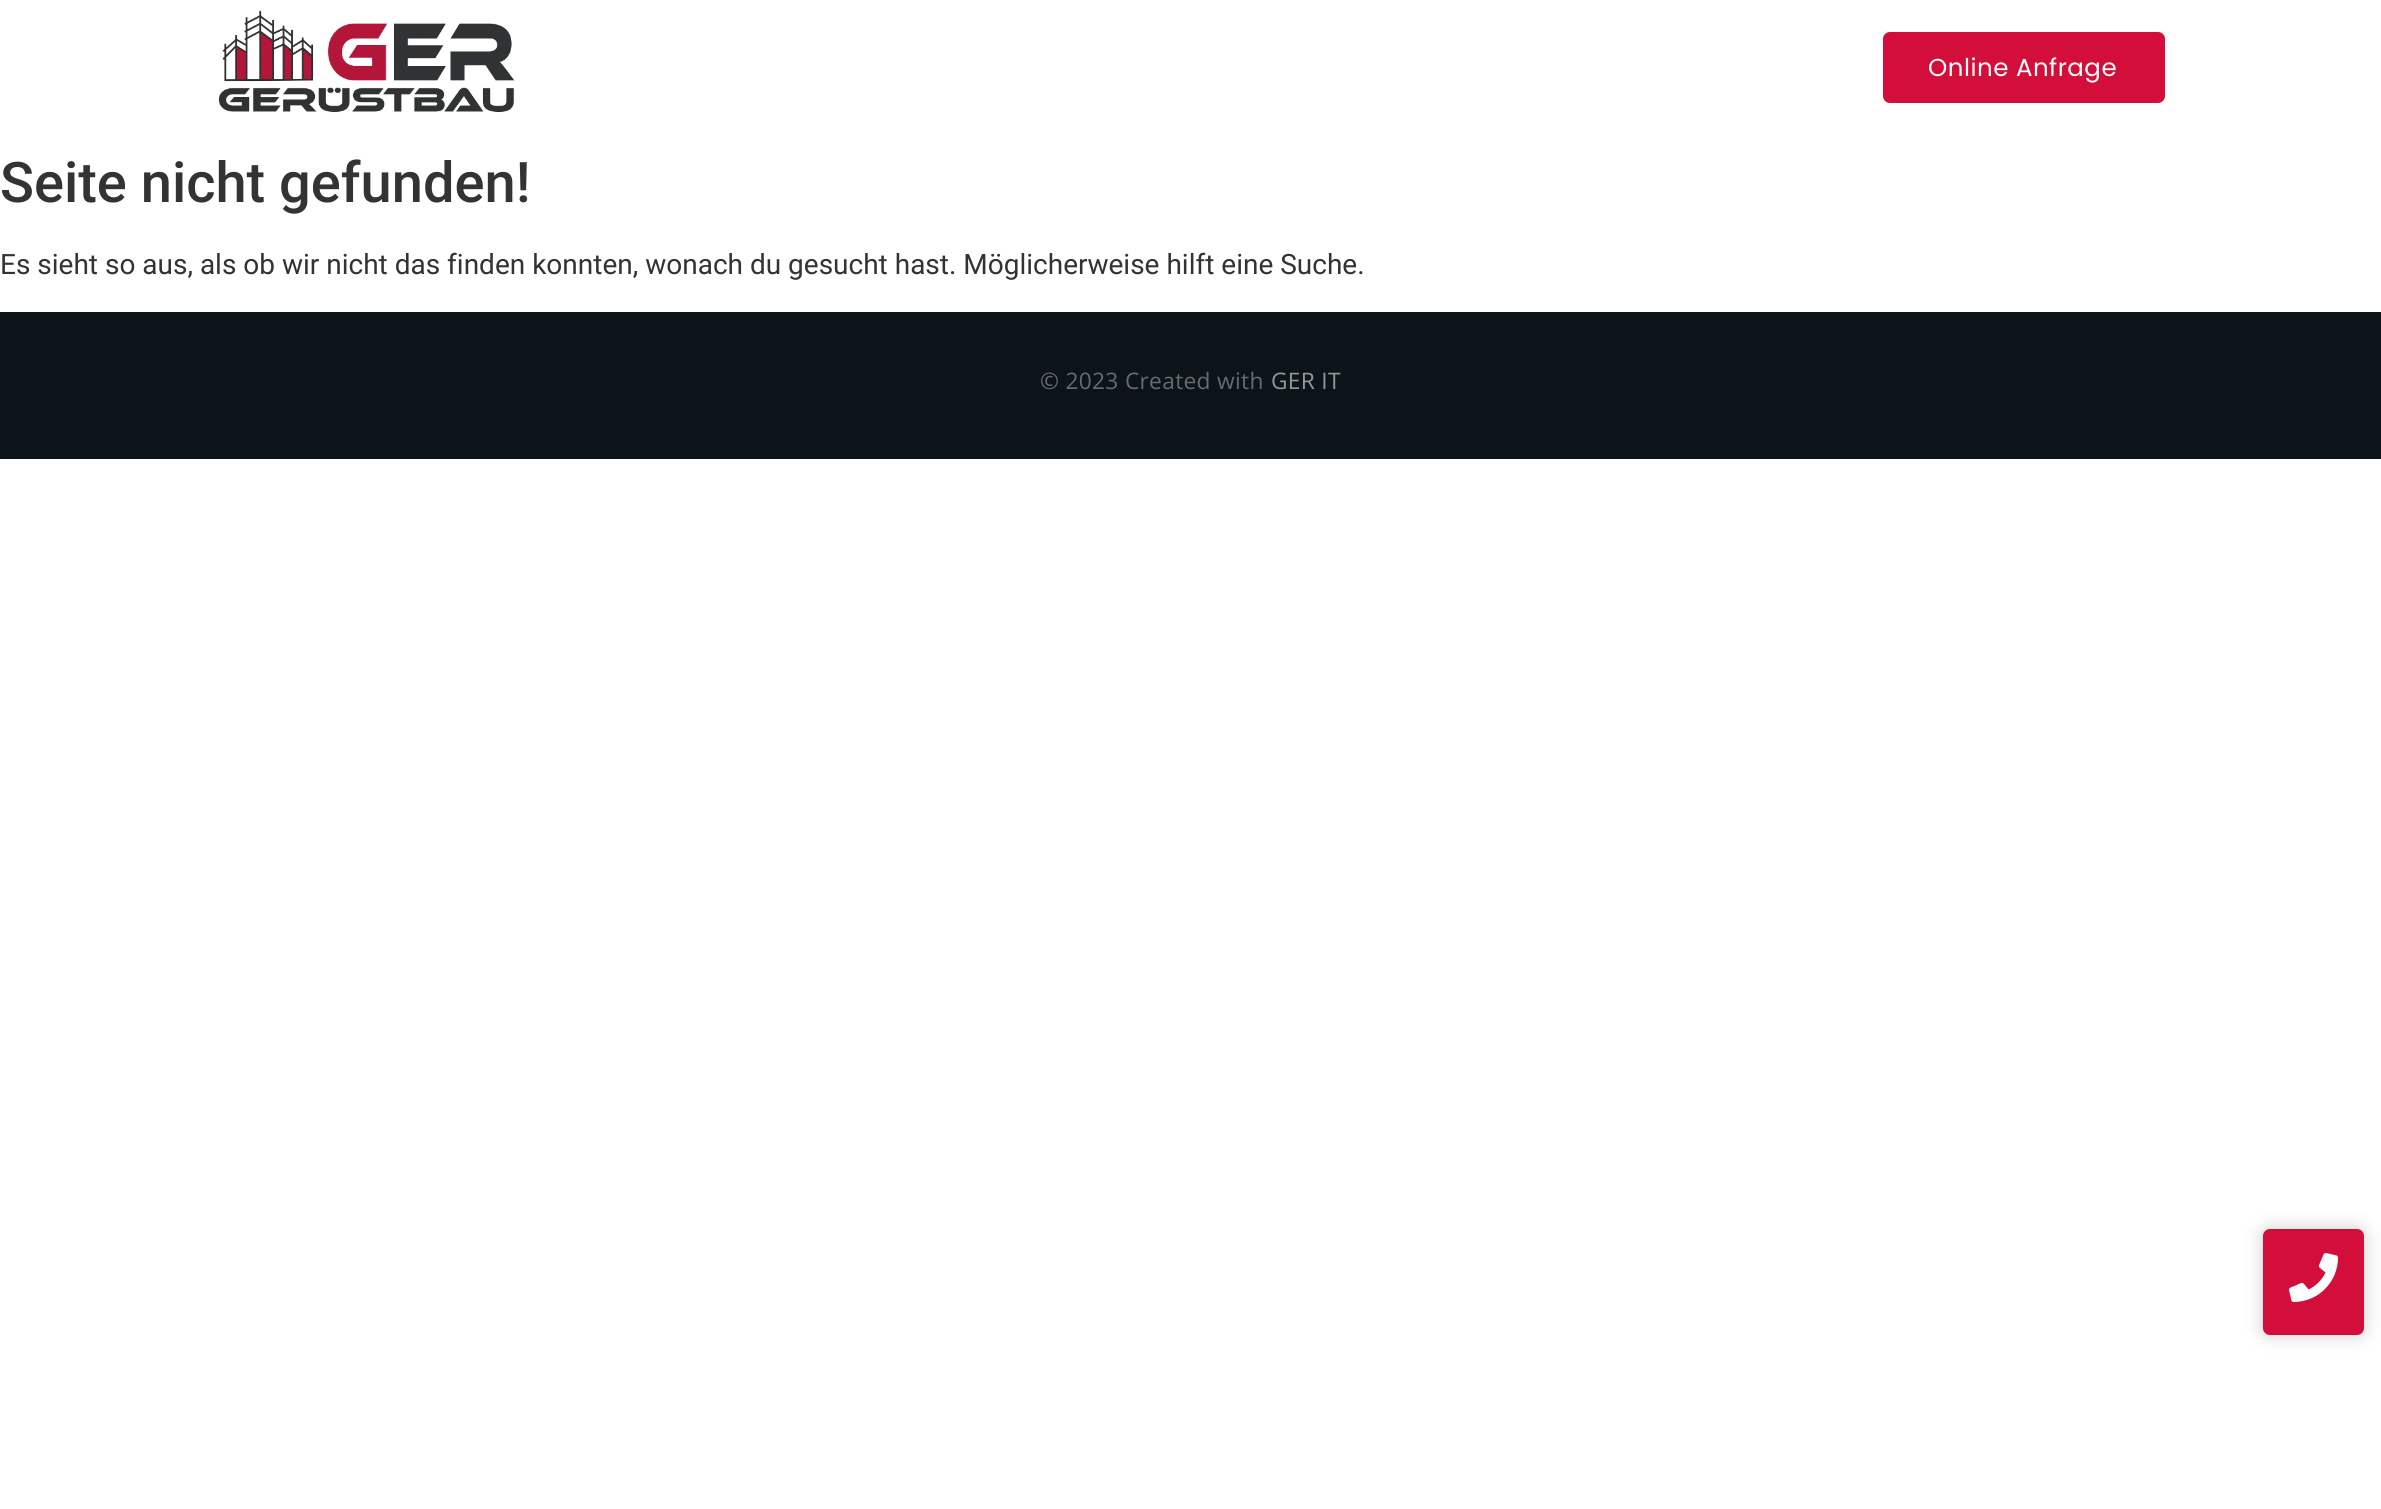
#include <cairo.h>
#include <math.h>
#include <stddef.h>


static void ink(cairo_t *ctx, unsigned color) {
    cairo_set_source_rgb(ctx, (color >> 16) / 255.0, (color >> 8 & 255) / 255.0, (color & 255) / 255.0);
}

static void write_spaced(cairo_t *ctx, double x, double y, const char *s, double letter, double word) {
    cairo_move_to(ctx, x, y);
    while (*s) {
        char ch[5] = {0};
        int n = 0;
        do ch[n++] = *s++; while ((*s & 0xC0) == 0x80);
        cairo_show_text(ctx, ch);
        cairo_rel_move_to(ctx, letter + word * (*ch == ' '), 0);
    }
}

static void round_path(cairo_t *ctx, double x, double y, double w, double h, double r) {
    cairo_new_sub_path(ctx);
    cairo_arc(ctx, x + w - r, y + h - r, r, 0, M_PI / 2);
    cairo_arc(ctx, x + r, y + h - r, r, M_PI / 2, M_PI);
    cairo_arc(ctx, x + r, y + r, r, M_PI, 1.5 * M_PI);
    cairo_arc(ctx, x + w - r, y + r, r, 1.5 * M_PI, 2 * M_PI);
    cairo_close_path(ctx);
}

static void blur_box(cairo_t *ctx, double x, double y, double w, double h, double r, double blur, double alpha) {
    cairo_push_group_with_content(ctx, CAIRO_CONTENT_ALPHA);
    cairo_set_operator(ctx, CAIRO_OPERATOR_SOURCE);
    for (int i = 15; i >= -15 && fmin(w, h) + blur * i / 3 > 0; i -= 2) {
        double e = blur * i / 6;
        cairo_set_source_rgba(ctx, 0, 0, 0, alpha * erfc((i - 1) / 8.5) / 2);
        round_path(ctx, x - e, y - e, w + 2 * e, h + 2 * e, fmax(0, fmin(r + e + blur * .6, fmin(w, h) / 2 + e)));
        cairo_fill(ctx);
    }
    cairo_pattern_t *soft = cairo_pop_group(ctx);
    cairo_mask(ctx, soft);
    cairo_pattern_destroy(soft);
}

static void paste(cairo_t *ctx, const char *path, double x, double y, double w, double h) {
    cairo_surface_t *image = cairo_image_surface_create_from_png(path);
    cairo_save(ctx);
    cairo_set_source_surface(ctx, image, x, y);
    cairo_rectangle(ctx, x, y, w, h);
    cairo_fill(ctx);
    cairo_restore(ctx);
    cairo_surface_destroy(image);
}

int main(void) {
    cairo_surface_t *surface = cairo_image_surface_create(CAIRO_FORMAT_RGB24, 2381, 1509);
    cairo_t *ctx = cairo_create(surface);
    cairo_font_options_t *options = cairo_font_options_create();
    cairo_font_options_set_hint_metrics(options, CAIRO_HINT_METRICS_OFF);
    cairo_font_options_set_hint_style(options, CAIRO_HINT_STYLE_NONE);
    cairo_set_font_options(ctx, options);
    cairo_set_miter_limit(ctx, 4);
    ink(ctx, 0xFFFFFF);
    cairo_paint(ctx);
    paste(ctx, "media/1.png", 219, 10, 296, 103);
    ink(ctx, 0xD40E3A);
    round_path(ctx, 1883, 32, 282, 71, 7);
    cairo_fill(ctx);
    cairo_select_font_face(ctx, "Poppins", CAIRO_FONT_SLANT_NORMAL, CAIRO_FONT_WEIGHT_NORMAL);
    cairo_set_font_size(ctx, 24.5);
    ink(ctx, 0xFFFFFF);
    write_spaced(ctx, 1928, 76, "Online Anfrage", 0.5, 0);
    cairo_select_font_face(ctx, "Roboto Medium", CAIRO_FONT_SLANT_NORMAL, CAIRO_FONT_WEIGHT_NORMAL);
    cairo_set_font_size(ctx, 56);
    ink(ctx, 0x333333);
    cairo_move_to(ctx, 0, 202);
    cairo_show_text(ctx, "Seite nicht gefunden!");
    cairo_select_font_face(ctx, "Roboto", CAIRO_FONT_SLANT_NORMAL, CAIRO_FONT_WEIGHT_NORMAL);
    cairo_set_font_size(ctx, 28);
    cairo_move_to(ctx, 0, 274);
    cairo_show_text(ctx, "Es sieht so aus, als ob wir nicht das finden konnten, wonach du gesucht hast. Möglicherweise hilft eine Suche.");
    ink(ctx, 0x0B1418);
    cairo_rectangle(ctx, 0, 312, 2381, 147);
    cairo_fill(ctx);
    cairo_select_font_face(ctx, "Open Sans", CAIRO_FONT_SLANT_NORMAL, CAIRO_FONT_WEIGHT_NORMAL);
    cairo_set_font_size(ctx, 22.75);
    ink(ctx, 0x636C6F);
    write_spaced(ctx, 1040, 389, "© 2023 Created with", 0.3, 0);
    ink(ctx, 0x939799);
    write_spaced(ctx, 1271, 389, "GER IT", 0.3, 0);
    ink(ctx, 0x000000);
    blur_box(ctx, 2263, 1229, 101, 106, 7, 9, 0.2);
    ink(ctx, 0xD40E3A);
    round_path(ctx, 2263, 1229, 101, 106, 7);
    cairo_fill(ctx);
    paste(ctx, "media/2.png", 2289, 1253, 49, 49);
    cairo_surface_write_to_png(surface, "image.png");
    cairo_font_options_destroy(options);
    cairo_destroy(ctx);
    cairo_surface_destroy(surface);
    return 0;
}
